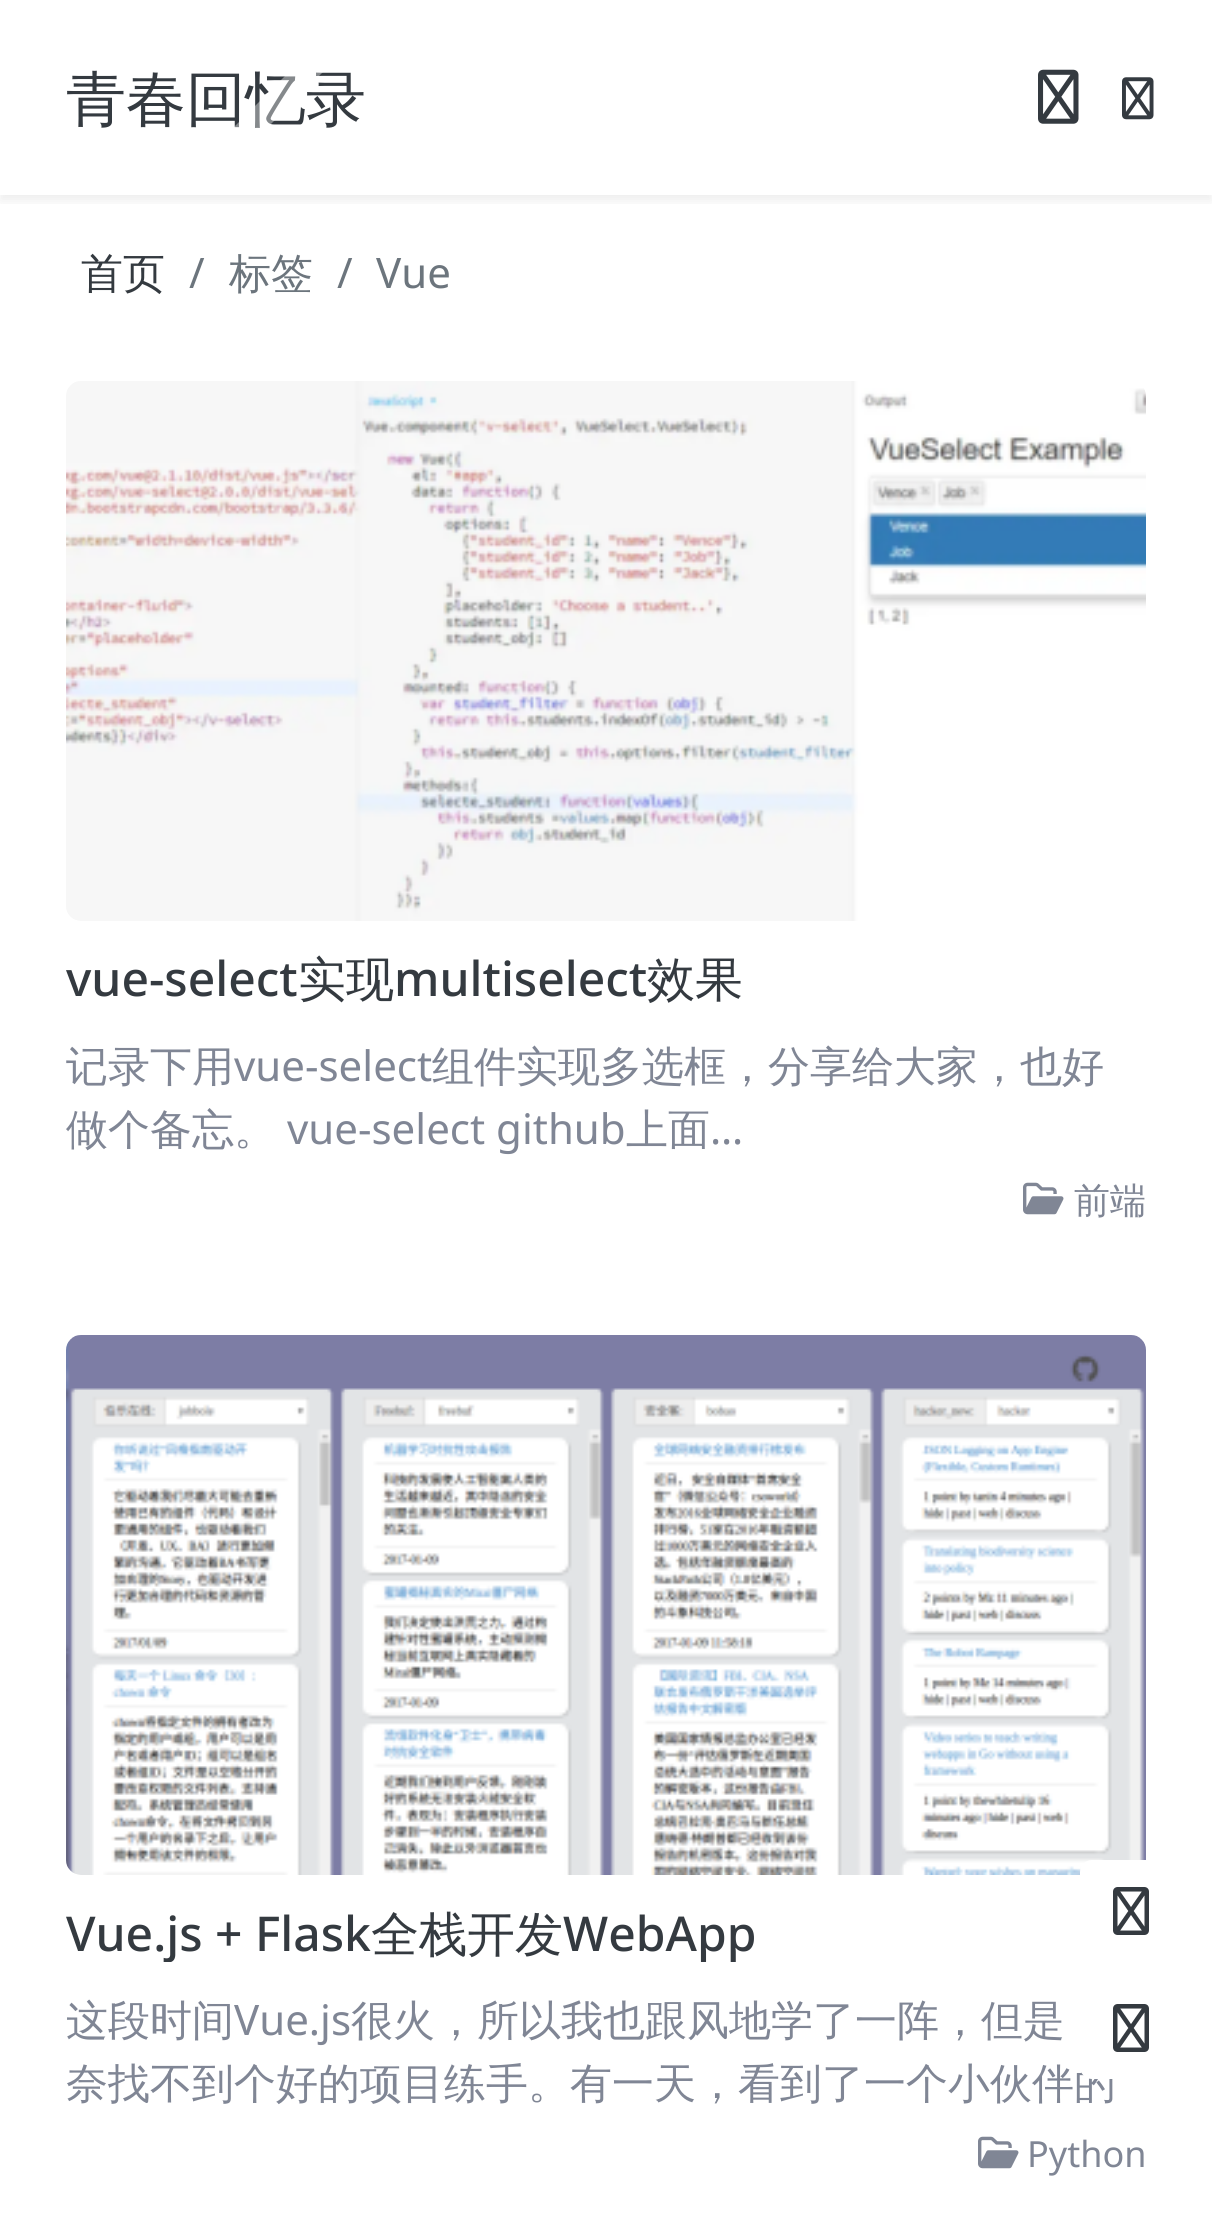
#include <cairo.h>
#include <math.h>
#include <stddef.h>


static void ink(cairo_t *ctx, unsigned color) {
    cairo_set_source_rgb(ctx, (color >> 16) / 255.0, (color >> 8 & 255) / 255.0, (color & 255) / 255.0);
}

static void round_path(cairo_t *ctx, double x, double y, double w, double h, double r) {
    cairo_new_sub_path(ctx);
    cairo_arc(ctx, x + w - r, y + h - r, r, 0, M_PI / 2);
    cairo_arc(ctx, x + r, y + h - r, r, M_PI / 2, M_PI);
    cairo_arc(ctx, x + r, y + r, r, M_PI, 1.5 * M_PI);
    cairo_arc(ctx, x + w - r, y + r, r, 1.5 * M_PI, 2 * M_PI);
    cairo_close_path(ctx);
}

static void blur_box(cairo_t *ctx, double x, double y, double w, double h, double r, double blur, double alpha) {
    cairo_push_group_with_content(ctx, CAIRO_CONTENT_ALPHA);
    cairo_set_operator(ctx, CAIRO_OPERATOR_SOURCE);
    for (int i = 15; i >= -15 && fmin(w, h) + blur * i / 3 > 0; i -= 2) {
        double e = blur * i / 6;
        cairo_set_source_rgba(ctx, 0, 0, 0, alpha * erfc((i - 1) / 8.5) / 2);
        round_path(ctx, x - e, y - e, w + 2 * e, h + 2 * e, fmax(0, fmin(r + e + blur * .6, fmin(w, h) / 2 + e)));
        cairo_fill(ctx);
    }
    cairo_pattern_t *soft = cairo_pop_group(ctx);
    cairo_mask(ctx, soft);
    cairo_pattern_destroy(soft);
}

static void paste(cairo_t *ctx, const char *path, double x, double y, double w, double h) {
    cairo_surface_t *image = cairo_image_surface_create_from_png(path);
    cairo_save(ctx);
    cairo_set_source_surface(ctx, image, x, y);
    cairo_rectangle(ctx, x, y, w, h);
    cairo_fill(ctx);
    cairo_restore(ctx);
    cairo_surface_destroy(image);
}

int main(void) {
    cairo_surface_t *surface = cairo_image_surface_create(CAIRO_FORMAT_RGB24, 1212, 2228);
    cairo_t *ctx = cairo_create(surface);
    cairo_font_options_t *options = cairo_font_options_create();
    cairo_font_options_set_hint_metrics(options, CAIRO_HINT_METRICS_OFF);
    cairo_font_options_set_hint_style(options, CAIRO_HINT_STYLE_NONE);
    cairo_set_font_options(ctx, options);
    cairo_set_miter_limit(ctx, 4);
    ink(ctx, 0xFFFFFF);
    cairo_paint(ctx);
    cairo_save(ctx);
    cairo_rectangle(ctx, 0, 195, 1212, 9);
    cairo_clip(ctx);
    ink(ctx, 0x000000);
    blur_box(ctx, 0, 6, 1212, 195, 0, 6, 0.07);
    cairo_restore(ctx);
    cairo_select_font_face(ctx, "WenQuanYi Zen Hei Medium", CAIRO_FONT_SLANT_NORMAL, CAIRO_FONT_WEIGHT_NORMAL);
    cairo_set_font_size(ctx, 60);
    ink(ctx, 0x343A40);
    cairo_move_to(ctx, 66, 120);
    cairo_show_text(ctx, "青春回忆录");
    cairo_save(ctx);
    cairo_rectangle(ctx, 36, 0, 360, 195);
    cairo_clip(ctx);
    cairo_set_source_rgba(ctx, 1, 1, 1, 0.4);
    cairo_new_path(ctx);
    cairo_move_to(ctx, 137, 224);
    cairo_line_to(ctx, 518, -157);
    cairo_line_to(ctx, 535, -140);
    cairo_line_to(ctx, 154, 241);
    cairo_close_path(ctx);
    cairo_fill(ctx);
    cairo_restore(ctx);
    paste(ctx, "media/1.png", 1038, 69, 41, 55);
    paste(ctx, "media/2.png", 1122, 77, 32, 43);
    cairo_set_font_size(ctx, 42);
    cairo_move_to(ctx, 81, 288);
    cairo_show_text(ctx, "首页");
    cairo_select_font_face(ctx, "Noto Sans", CAIRO_FONT_SLANT_NORMAL, CAIRO_FONT_WEIGHT_NORMAL);
    ink(ctx, 0x6C757D);
    cairo_move_to(ctx, 189, 288);
    cairo_show_text(ctx, "/");
    cairo_select_font_face(ctx, "WenQuanYi Zen Hei Medium", CAIRO_FONT_SLANT_NORMAL, CAIRO_FONT_WEIGHT_NORMAL);
    cairo_move_to(ctx, 229, 288);
    cairo_show_text(ctx, "标签");
    cairo_select_font_face(ctx, "Noto Sans", CAIRO_FONT_SLANT_NORMAL, CAIRO_FONT_WEIGHT_NORMAL);
    cairo_move_to(ctx, 337, 288);
    cairo_show_text(ctx, "/");
    cairo_move_to(ctx, 376, 288);
    cairo_show_text(ctx, "Vue");
    paste(ctx, "media/3.png", 66, 381, 1080, 540);
    cairo_select_font_face(ctx, "Noto Sans Medium", CAIRO_FONT_SLANT_NORMAL, CAIRO_FONT_WEIGHT_NORMAL);
    cairo_set_font_size(ctx, 48);
    ink(ctx, 0x343A40);
    cairo_move_to(ctx, 66, 996);
    cairo_show_text(ctx, "vue-select");
    cairo_select_font_face(ctx, "WenQuanYi Zen Hei Medium", CAIRO_FONT_SLANT_NORMAL, CAIRO_FONT_WEIGHT_NORMAL);
    cairo_move_to(ctx, 298, 996);
    cairo_show_text(ctx, "实现");
    cairo_select_font_face(ctx, "Noto Sans Medium", CAIRO_FONT_SLANT_NORMAL, CAIRO_FONT_WEIGHT_NORMAL);
    cairo_move_to(ctx, 394, 996);
    cairo_show_text(ctx, "multiselect");
    cairo_select_font_face(ctx, "WenQuanYi Zen Hei Medium", CAIRO_FONT_SLANT_NORMAL, CAIRO_FONT_WEIGHT_NORMAL);
    cairo_move_to(ctx, 647, 996);
    cairo_show_text(ctx, "效果");
    cairo_set_font_size(ctx, 42);
    ink(ctx, 0x808695);
    cairo_move_to(ctx, 66, 1081);
    cairo_show_text(ctx, "记录下用");
    cairo_select_font_face(ctx, "Noto Sans", CAIRO_FONT_SLANT_NORMAL, CAIRO_FONT_WEIGHT_NORMAL);
    cairo_move_to(ctx, 234, 1081);
    cairo_show_text(ctx, "vue-select");
    cairo_select_font_face(ctx, "WenQuanYi Zen Hei Medium", CAIRO_FONT_SLANT_NORMAL, CAIRO_FONT_WEIGHT_NORMAL);
    cairo_move_to(ctx, 432, 1081);
    cairo_show_text(ctx, "组件实现多选框，分享给大家，也好");
    cairo_move_to(ctx, 66, 1144);
    cairo_show_text(ctx, "做个备忘。");
    cairo_select_font_face(ctx, "Noto Sans", CAIRO_FONT_SLANT_NORMAL, CAIRO_FONT_WEIGHT_NORMAL);
    cairo_move_to(ctx, 287, 1144);
    cairo_show_text(ctx, "vue-select github");
    cairo_select_font_face(ctx, "WenQuanYi Zen Hei Medium", CAIRO_FONT_SLANT_NORMAL, CAIRO_FONT_WEIGHT_NORMAL);
    cairo_move_to(ctx, 626, 1144);
    cairo_show_text(ctx, "上面");
    cairo_select_font_face(ctx, "Noto Sans", CAIRO_FONT_SLANT_NORMAL, CAIRO_FONT_WEIGHT_NORMAL);
    cairo_move_to(ctx, 710, 1144);
    cairo_show_text(ctx, "…");
    paste(ctx, "media/4.png", 1023, 1182, 41, 33);
    cairo_select_font_face(ctx, "WenQuanYi Zen Hei Medium", CAIRO_FONT_SLANT_NORMAL, CAIRO_FONT_WEIGHT_NORMAL);
    cairo_set_font_size(ctx, 36);
    cairo_move_to(ctx, 1074, 1213);
    cairo_show_text(ctx, "前端");
    paste(ctx, "media/5.png", 66, 1335, 1080, 540);
    cairo_save(ctx);
    cairo_rectangle(ctx, 66, 1905, 1080, 57);
    cairo_clip(ctx);
    cairo_select_font_face(ctx, "Noto Sans Medium", CAIRO_FONT_SLANT_NORMAL, CAIRO_FONT_WEIGHT_NORMAL);
    cairo_set_font_size(ctx, 48);
    ink(ctx, 0x343A40);
    cairo_move_to(ctx, 66, 1951);
    cairo_show_text(ctx, "Vue.js + Flask");
    cairo_restore(ctx);
    cairo_set_font_size(ctx, 48);
    ink(ctx, 0x343A40);
    cairo_move_to(ctx, 371, 1951);
    cairo_show_text(ctx, "全栈开发");
    cairo_save(ctx);
    cairo_rectangle(ctx, 66, 1905, 1080, 57);
    cairo_clip(ctx);
    cairo_select_font_face(ctx, "Noto Sans Medium", CAIRO_FONT_SLANT_NORMAL, CAIRO_FONT_WEIGHT_NORMAL);
    cairo_move_to(ctx, 563, 1951);
    cairo_show_text(ctx, "WebApp");
    cairo_restore(ctx);
    cairo_set_font_size(ctx, 42);
    ink(ctx, 0x808695);
    cairo_move_to(ctx, 66, 2035);
    cairo_show_text(ctx, "这段时间");
    cairo_select_font_face(ctx, "Noto Sans", CAIRO_FONT_SLANT_NORMAL, CAIRO_FONT_WEIGHT_NORMAL);
    cairo_move_to(ctx, 234, 2035);
    cairo_show_text(ctx, "Vue.js");
    cairo_select_font_face(ctx, "WenQuanYi Zen Hei Medium", CAIRO_FONT_SLANT_NORMAL, CAIRO_FONT_WEIGHT_NORMAL);
    cairo_move_to(ctx, 351, 2035);
    cairo_show_text(ctx, "很火，所以我也跟风地学了一阵，但是");
    cairo_move_to(ctx, 66, 2098);
    cairo_show_text(ctx, "奈找不到个好的项目练手。有一天，看到了一个小伙伴的");
    paste(ctx, "media/4.png", 978, 2136, 41, 33);
    cairo_select_font_face(ctx, "Noto Sans", CAIRO_FONT_SLANT_NORMAL, CAIRO_FONT_WEIGHT_NORMAL);
    cairo_set_font_size(ctx, 36);
    cairo_move_to(ctx, 1027, 2167);
    cairo_show_text(ctx, "Python");
    ink(ctx, 0xFFFFFF);
    round_path(ctx, 1080, 1860, 102, 102, 12);
    cairo_fill(ctx);
    paste(ctx, "media/6.png", 1113, 1887, 36, 48);
    round_path(ctx, 1080, 1977, 102, 102, 12);
    cairo_fill(ctx);
    paste(ctx, "media/6.png", 1113, 2004, 36, 48);
    cairo_surface_write_to_png(surface, "image.png");
    cairo_font_options_destroy(options);
    cairo_destroy(ctx);
    cairo_surface_destroy(surface);
    return 0;
}
